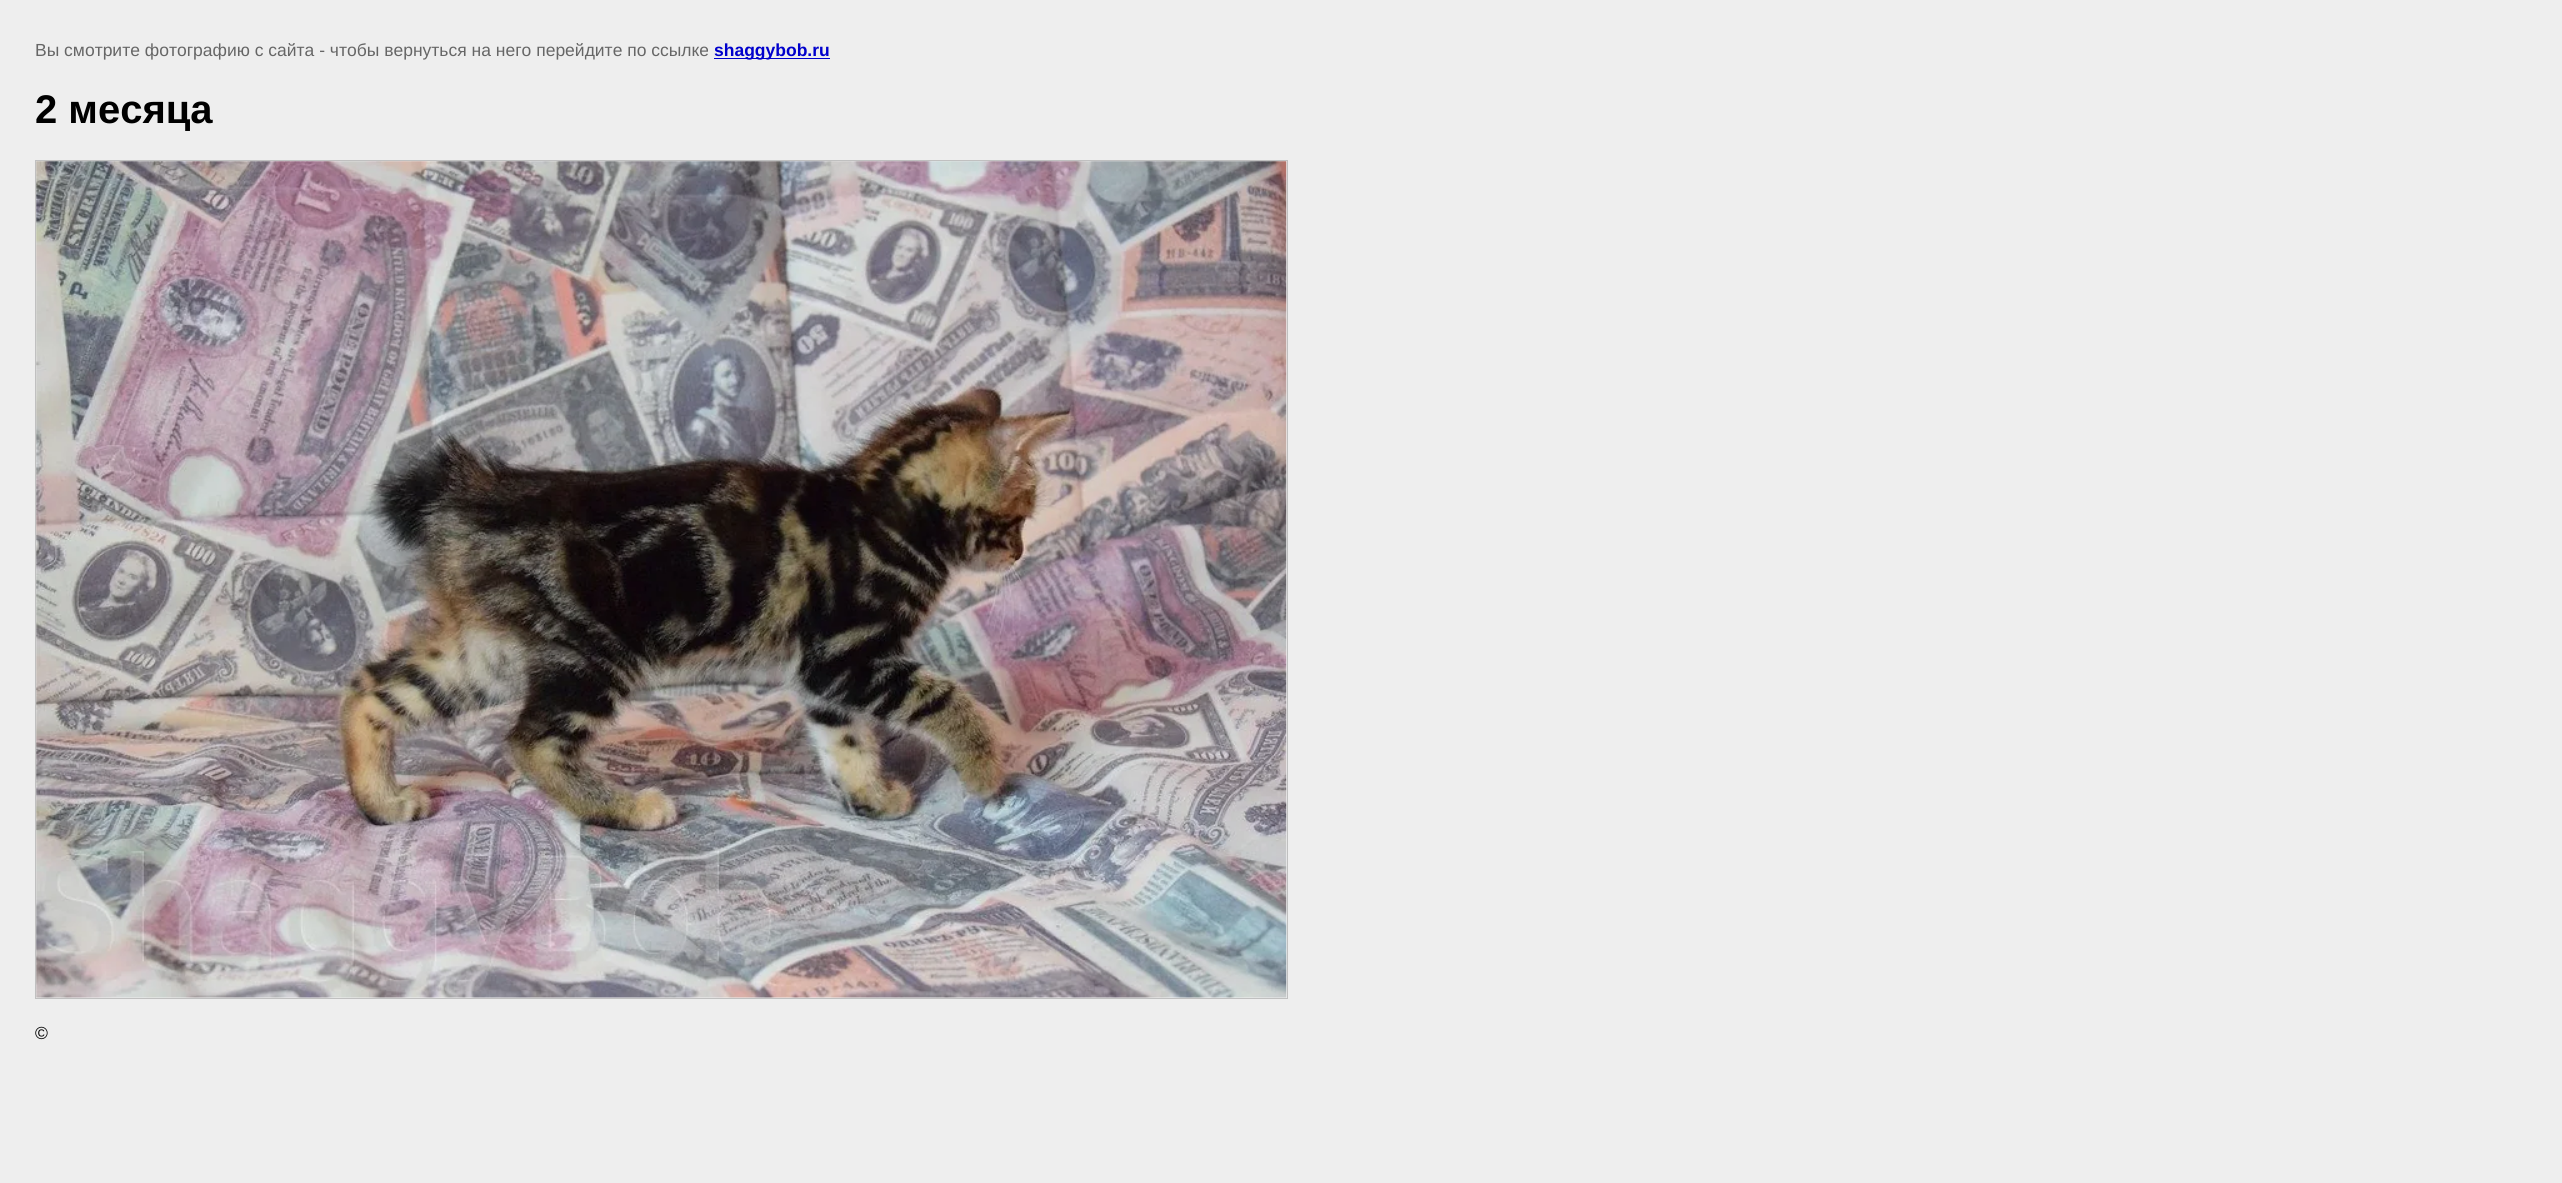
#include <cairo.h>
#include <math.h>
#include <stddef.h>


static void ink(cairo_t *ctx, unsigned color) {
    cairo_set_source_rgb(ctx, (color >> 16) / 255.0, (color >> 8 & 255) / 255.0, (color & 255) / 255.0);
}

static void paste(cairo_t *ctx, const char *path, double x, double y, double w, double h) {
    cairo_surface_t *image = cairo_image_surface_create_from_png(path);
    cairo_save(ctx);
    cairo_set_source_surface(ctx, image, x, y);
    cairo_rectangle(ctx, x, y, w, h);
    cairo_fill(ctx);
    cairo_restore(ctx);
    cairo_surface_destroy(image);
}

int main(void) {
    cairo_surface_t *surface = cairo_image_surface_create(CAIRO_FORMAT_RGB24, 2562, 1183);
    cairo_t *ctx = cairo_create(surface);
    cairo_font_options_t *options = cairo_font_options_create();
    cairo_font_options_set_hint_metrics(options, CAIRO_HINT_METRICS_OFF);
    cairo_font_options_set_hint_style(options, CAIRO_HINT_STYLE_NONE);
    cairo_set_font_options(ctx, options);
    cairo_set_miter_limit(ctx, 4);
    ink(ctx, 0xEEEEEE);
    cairo_paint(ctx);
    cairo_select_font_face(ctx, "Liberation Sans", CAIRO_FONT_SLANT_NORMAL, CAIRO_FONT_WEIGHT_NORMAL);
    cairo_set_font_size(ctx, 17.5);
    ink(ctx, 0x666666);
    cairo_move_to(ctx, 35, 56);
    cairo_show_text(ctx, "Вы смотрите фотографию с сайта - чтобы вернуться на него перейдите по ссылке");
    ink(ctx, 0x0000CC);
    cairo_rectangle(ctx, 714, 58, 116, 1);
    cairo_fill(ctx);
    cairo_select_font_face(ctx, "Liberation Sans", CAIRO_FONT_SLANT_NORMAL, CAIRO_FONT_WEIGHT_BOLD);
    cairo_move_to(ctx, 714, 56);
    cairo_show_text(ctx, "shaggybob.ru");
    cairo_set_font_size(ctx, 40);
    ink(ctx, 0x000000);
    cairo_move_to(ctx, 35, 123);
    cairo_show_text(ctx, "2 месяца");
    cairo_rectangle(ctx, 35.5, 160.5, 1252, 838);
    ink(ctx, 0xC0C0C0);
    cairo_set_line_width(ctx, 1);
    cairo_stroke(ctx);
    paste(ctx, "media/1.png", 36, 161, 1251, 837);
    cairo_select_font_face(ctx, "Liberation Sans", CAIRO_FONT_SLANT_NORMAL, CAIRO_FONT_WEIGHT_NORMAL);
    cairo_set_font_size(ctx, 17.5);
    ink(ctx, 0x000000);
    cairo_move_to(ctx, 35, 1039);
    cairo_show_text(ctx, "©");
    cairo_surface_write_to_png(surface, "image.png");
    cairo_font_options_destroy(options);
    cairo_destroy(ctx);
    cairo_surface_destroy(surface);
    return 0;
}
